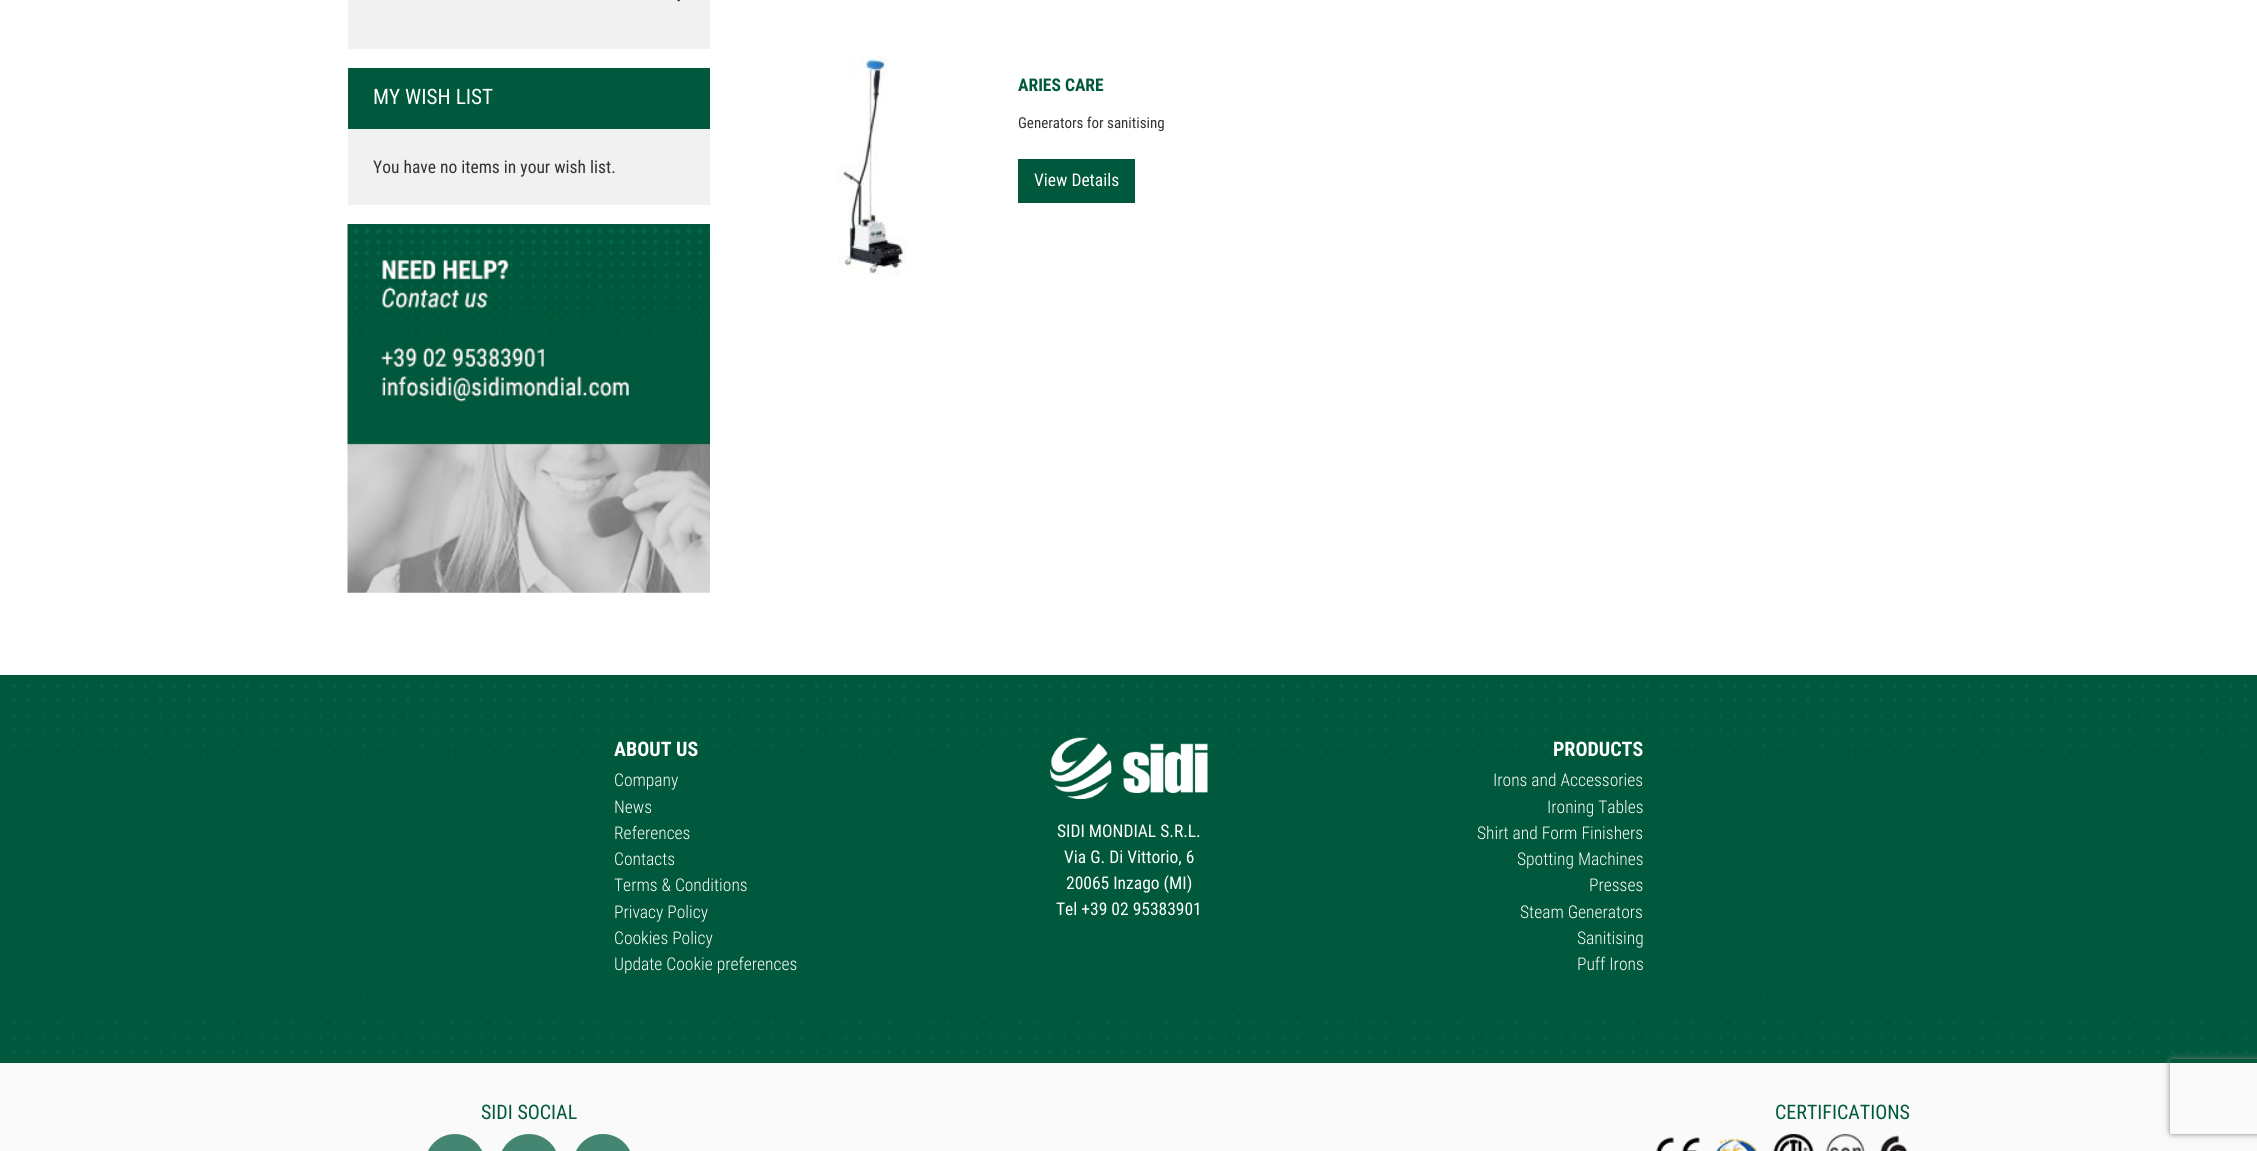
#include <cairo.h>
#include <math.h>
#include <stddef.h>

typedef struct { double x, y; const char *s; } line_t;

static void ink(cairo_t *ctx, unsigned color) {
    cairo_set_source_rgb(ctx, (color >> 16) / 255.0, (color >> 8 & 255) / 255.0, (color & 255) / 255.0);
}

static void round_path(cairo_t *ctx, double x, double y, double w, double h, double r) {
    cairo_new_sub_path(ctx);
    cairo_arc(ctx, x + w - r, y + h - r, r, 0, M_PI / 2);
    cairo_arc(ctx, x + r, y + h - r, r, M_PI / 2, M_PI);
    cairo_arc(ctx, x + r, y + r, r, M_PI, 1.5 * M_PI);
    cairo_arc(ctx, x + w - r, y + r, r, 1.5 * M_PI, 2 * M_PI);
    cairo_close_path(ctx);
}

static void blur_box(cairo_t *ctx, double x, double y, double w, double h, double r, double blur, double alpha) {
    cairo_push_group_with_content(ctx, CAIRO_CONTENT_ALPHA);
    cairo_set_operator(ctx, CAIRO_OPERATOR_SOURCE);
    for (int i = 15; i >= -15 && fmin(w, h) + blur * i / 3 > 0; i -= 2) {
        double e = blur * i / 6;
        cairo_set_source_rgba(ctx, 0, 0, 0, alpha * erfc((i - 1) / 8.5) / 2);
        round_path(ctx, x - e, y - e, w + 2 * e, h + 2 * e, fmax(0, fmin(r + e + blur * .6, fmin(w, h) / 2 + e)));
        cairo_fill(ctx);
    }
    cairo_pattern_t *soft = cairo_pop_group(ctx);
    cairo_mask(ctx, soft);
    cairo_pattern_destroy(soft);
}

static void paste(cairo_t *ctx, const char *path, double x, double y, double w, double h) {
    cairo_surface_t *image = cairo_image_surface_create_from_png(path);
    cairo_save(ctx);
    cairo_set_source_surface(ctx, image, x, y);
    cairo_rectangle(ctx, x, y, w, h);
    cairo_fill(ctx);
    cairo_restore(ctx);
    cairo_surface_destroy(image);
}

int main(void) {
    cairo_surface_t *surface = cairo_image_surface_create(CAIRO_FORMAT_RGB24, 2257, 1151);
    cairo_t *ctx = cairo_create(surface);
    cairo_font_options_t *options = cairo_font_options_create();
    cairo_font_options_set_hint_metrics(options, CAIRO_HINT_METRICS_OFF);
    cairo_font_options_set_hint_style(options, CAIRO_HINT_STYLE_NONE);
    cairo_set_font_options(ctx, options);
    cairo_set_miter_limit(ctx, 4);
    ink(ctx, 0xFFFFFF);
    cairo_paint(ctx);
    ink(ctx, 0xF1F1F1);
    cairo_rectangle(ctx, 348, 0, 362, 49);
    cairo_fill(ctx);
    paste(ctx, "media/1.png", 677, 0, 4, 2);
    ink(ctx, 0x00583D);
    cairo_rectangle(ctx, 348, 68, 362, 61);
    cairo_fill(ctx);
    cairo_select_font_face(ctx, "Roboto Condensed", CAIRO_FONT_SLANT_NORMAL, CAIRO_FONT_WEIGHT_NORMAL);
    cairo_set_font_size(ctx, 21.25);
    ink(ctx, 0xFFFFFF);
    cairo_move_to(ctx, 373, 104);
    cairo_show_text(ctx, "MY WISH LIST");
    ink(ctx, 0xF1F1F1);
    cairo_rectangle(ctx, 348, 129, 362, 76);
    cairo_fill(ctx);
    cairo_set_font_size(ctx, 17.5);
    ink(ctx, 0x333333);
    cairo_move_to(ctx, 373, 173);
    cairo_show_text(ctx, "You have no items in your wish list.");
    paste(ctx, "media/2.png", 347, 224, 363, 369);
    paste(ctx, "media/3.png", 837, 55, 70, 220);
    cairo_select_font_face(ctx, "Roboto Condensed", CAIRO_FONT_SLANT_NORMAL, CAIRO_FONT_WEIGHT_BOLD);
    ink(ctx, 0x00583D);
    cairo_move_to(ctx, 1018, 91);
    cairo_show_text(ctx, "ARIES CARE");
    cairo_select_font_face(ctx, "Roboto Condensed", CAIRO_FONT_SLANT_NORMAL, CAIRO_FONT_WEIGHT_NORMAL);
    cairo_set_font_size(ctx, 15);
    ink(ctx, 0x333333);
    cairo_move_to(ctx, 1018, 128);
    cairo_show_text(ctx, "Generators for sanitising");
    ink(ctx, 0x00583D);
    cairo_rectangle(ctx, 1018, 159, 117, 44);
    cairo_fill(ctx);
    cairo_set_font_size(ctx, 17.5);
    ink(ctx, 0xFFFFFF);
    cairo_move_to(ctx, 1034, 186);
    cairo_show_text(ctx, "View Details");
    ink(ctx, 0x00583D);
    cairo_rectangle(ctx, 0, 675, 2257, 388);
    cairo_fill(ctx);
    paste(ctx, "media/4.png", 0, 684, 2248, 370);
    cairo_select_font_face(ctx, "Roboto Condensed", CAIRO_FONT_SLANT_NORMAL, CAIRO_FONT_WEIGHT_BOLD);
    cairo_set_font_size(ctx, 20);
    ink(ctx, 0xFFFFFF);
    cairo_move_to(ctx, 614, 756);
    cairo_show_text(ctx, "ABOUT US");
    cairo_select_font_face(ctx, "Roboto Condensed Light", CAIRO_FONT_SLANT_NORMAL, CAIRO_FONT_WEIGHT_NORMAL);
    cairo_set_font_size(ctx, 17.5);
    {
        static const line_t items[] = {
            {614, 786, "Company"},
            {614, 813, "News"},
            {614, 839, "References"},
            {614, 865, "Contacts"},
            {614, 891, "Terms & Conditions"},
            {614, 918, "Privacy Policy"},
            {614, 944, "Cookies Policy"},
            {614, 970, "Update Cookie preferences"},
        };
        for (size_t i = 0; i < sizeof items / sizeof *items; i++) {
            cairo_move_to(ctx, items[i].x, items[i].y);
            cairo_show_text(ctx, items[i].s);
        }
    }
    paste(ctx, "media/5.png", 1050, 737, 158, 62);
    cairo_select_font_face(ctx, "Roboto Condensed", CAIRO_FONT_SLANT_NORMAL, CAIRO_FONT_WEIGHT_NORMAL);
    {
        static const line_t items[] = {
            {1057, 837, "SIDI MONDIAL S.R.L."},
            {1064, 863, "Via G. Di Vittorio, 6"},
            {1066, 889, "20065 Inzago (MI)"},
            {1056, 915, "Tel +39 02 95383901"},
        };
        for (size_t i = 0; i < sizeof items / sizeof *items; i++) {
            cairo_move_to(ctx, items[i].x, items[i].y);
            cairo_show_text(ctx, items[i].s);
        }
    }
    cairo_select_font_face(ctx, "Roboto Condensed", CAIRO_FONT_SLANT_NORMAL, CAIRO_FONT_WEIGHT_BOLD);
    cairo_set_font_size(ctx, 20);
    cairo_move_to(ctx, 1553, 756);
    cairo_show_text(ctx, "PRODUCTS");
    cairo_select_font_face(ctx, "Roboto Condensed Light", CAIRO_FONT_SLANT_NORMAL, CAIRO_FONT_WEIGHT_NORMAL);
    cairo_set_font_size(ctx, 17.5);
    {
        static const line_t items[] = {
            {1493, 786, "Irons and Accessories"},
            {1547, 813, "Ironing Tables"},
            {1477, 839, "Shirt and Form Finishers"},
            {1517, 865, "Spotting Machines"},
            {1589, 891, "Presses"},
            {1520, 918, "Steam Generators"},
            {1577, 944, "Sanitising"},
            {1577, 970, "Puff Irons"},
        };
        for (size_t i = 0; i < sizeof items / sizeof *items; i++) {
            cairo_move_to(ctx, items[i].x, items[i].y);
            cairo_show_text(ctx, items[i].s);
        }
    }
    ink(ctx, 0xFAFAFA);
    cairo_rectangle(ctx, 0, 1063, 2257, 88);
    cairo_fill(ctx);
    cairo_select_font_face(ctx, "Roboto Condensed", CAIRO_FONT_SLANT_NORMAL, CAIRO_FONT_WEIGHT_NORMAL);
    cairo_set_font_size(ctx, 20);
    ink(ctx, 0x00583D);
    cairo_move_to(ctx, 481, 1119);
    cairo_show_text(ctx, "SIDI SOCIAL");
    ink(ctx, 0x448672);
    round_path(ctx, 425, 1134, 60, 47, 30);
    cairo_fill(ctx);
    round_path(ctx, 499, 1134, 60, 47, 30);
    cairo_fill(ctx);
    round_path(ctx, 573, 1134, 60, 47, 30);
    cairo_fill(ctx);
    ink(ctx, 0x00583D);
    cairo_move_to(ctx, 1775, 1119);
    cairo_show_text(ctx, "CERTIFICATIONS");
    paste(ctx, "media/6.png", 1656, 1134, 252, 17);
    cairo_save(ctx);
    cairo_set_fill_rule(ctx, CAIRO_FILL_RULE_EVEN_ODD);
    cairo_new_path(ctx);
    cairo_move_to(ctx, 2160, 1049);
    cairo_line_to(ctx, 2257, 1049);
    cairo_line_to(ctx, 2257, 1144);
    cairo_line_to(ctx, 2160, 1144);
    cairo_close_path(ctx);
    cairo_move_to(ctx, 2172.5, 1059);
    cairo_line_to(ctx, 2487.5, 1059);
    cairo_curve_to(ctx, 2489, 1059, 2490, 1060, 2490, 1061.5);
    cairo_line_to(ctx, 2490, 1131.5);
    cairo_curve_to(ctx, 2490, 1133, 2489, 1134, 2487.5, 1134);
    cairo_line_to(ctx, 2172.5, 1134);
    cairo_curve_to(ctx, 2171, 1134, 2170, 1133, 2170, 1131.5);
    cairo_line_to(ctx, 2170, 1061.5);
    cairo_curve_to(ctx, 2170, 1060, 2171, 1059, 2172.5, 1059);
    cairo_close_path(ctx);
    cairo_clip(ctx);
    ink(ctx, 0x808080);
    blur_box(ctx, 2170, 1059, 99, 75, 2.5, 3, 1);
    cairo_restore(ctx);
    cairo_surface_write_to_png(surface, "image.png");
    cairo_font_options_destroy(options);
    cairo_destroy(ctx);
    cairo_surface_destroy(surface);
    return 0;
}
